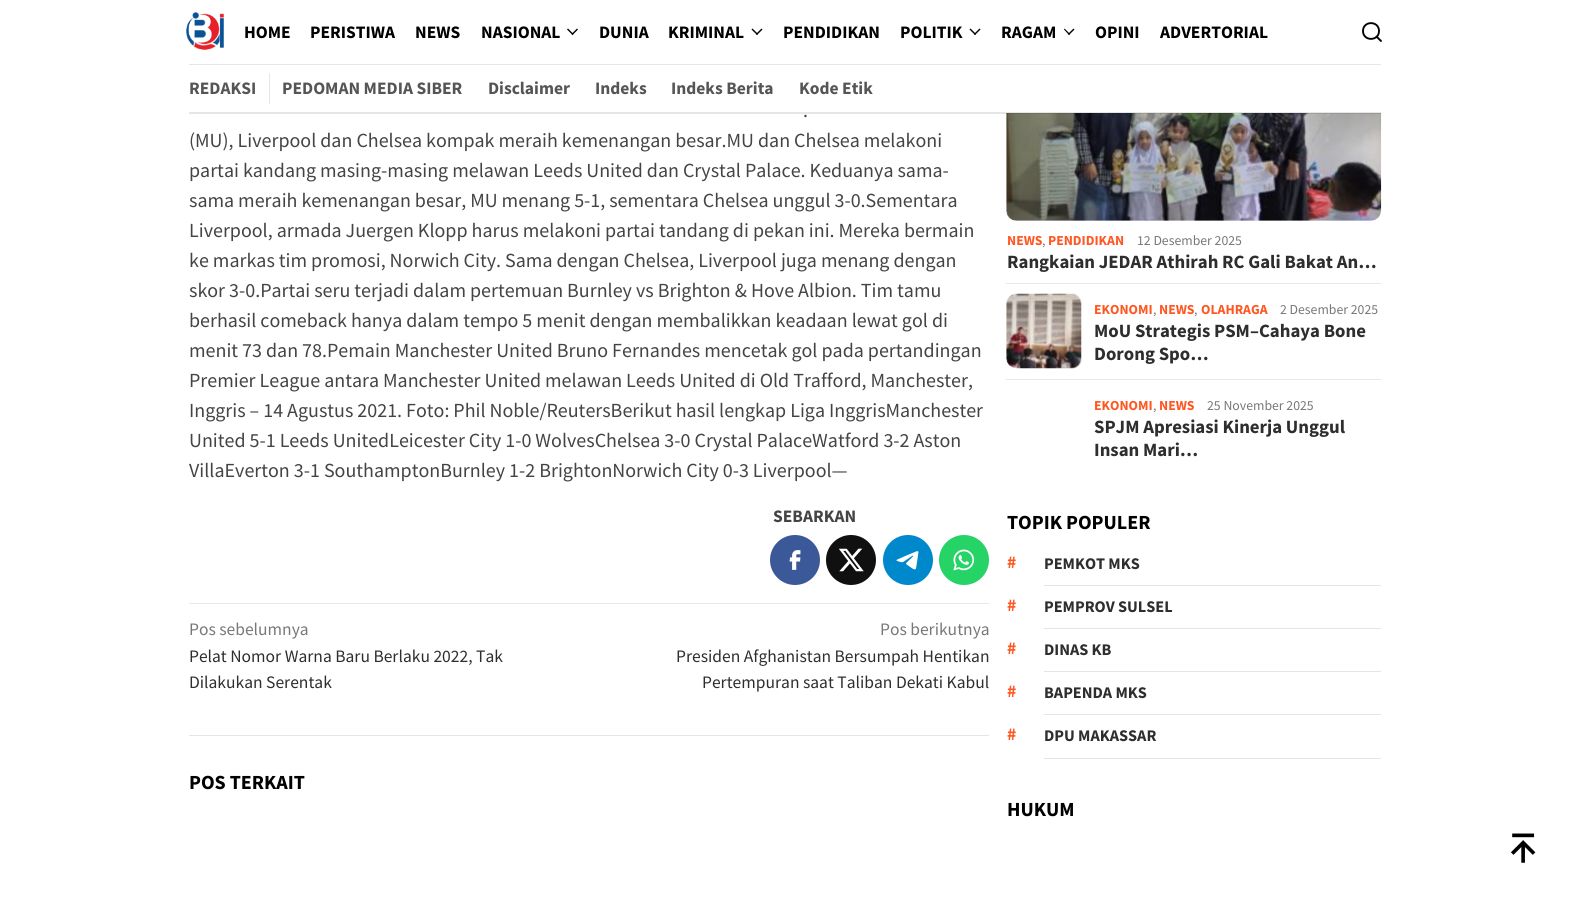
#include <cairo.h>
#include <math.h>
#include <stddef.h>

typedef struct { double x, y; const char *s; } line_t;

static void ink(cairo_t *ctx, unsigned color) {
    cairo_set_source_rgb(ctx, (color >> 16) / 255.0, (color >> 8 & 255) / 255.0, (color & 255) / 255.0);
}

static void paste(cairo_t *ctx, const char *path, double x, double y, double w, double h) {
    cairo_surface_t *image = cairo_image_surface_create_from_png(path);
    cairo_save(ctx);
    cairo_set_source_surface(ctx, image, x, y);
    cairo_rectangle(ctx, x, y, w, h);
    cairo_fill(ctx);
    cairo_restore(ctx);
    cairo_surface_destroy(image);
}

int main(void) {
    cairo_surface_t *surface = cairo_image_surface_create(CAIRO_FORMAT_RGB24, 1570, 899);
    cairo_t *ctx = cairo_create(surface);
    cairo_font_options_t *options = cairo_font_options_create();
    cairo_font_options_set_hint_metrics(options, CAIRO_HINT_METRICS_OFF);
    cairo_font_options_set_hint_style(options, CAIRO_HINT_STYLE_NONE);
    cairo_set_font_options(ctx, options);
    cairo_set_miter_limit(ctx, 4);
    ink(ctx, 0xFFFFFF);
    cairo_paint(ctx);
    ink(ctx, 0xE6E6E6);
    cairo_rectangle(ctx, 189, 64, 1192, 1);
    cairo_fill(ctx);
    paste(ctx, "media/1.png", 186, 12, 38, 38);
    cairo_select_font_face(ctx, "Source Sans Pro", CAIRO_FONT_SLANT_NORMAL, CAIRO_FONT_WEIGHT_BOLD);
    cairo_set_font_size(ctx, 17.5);
    ink(ctx, 0x000000);
    {
        static const line_t items[] = {
            {244, 38, "HOME"},
            {310, 38, "PERISTIWA"},
            {415, 38, "NEWS"},
            {481, 38, "NASIONAL"},
        };
        for (size_t i = 0; i < sizeof items / sizeof *items; i++) {
            cairo_move_to(ctx, items[i].x, items[i].y);
            cairo_show_text(ctx, items[i].s);
        }
    }
    cairo_new_path(ctx);
    cairo_move_to(ctx, 577, 28.5);
    cairo_line_to(ctx, 578, 29.5);
    cairo_line_to(ctx, 572.5, 35);
    cairo_line_to(ctx, 571.5, 34);
    cairo_close_path(ctx);
    cairo_fill(ctx);
    cairo_new_path(ctx);
    cairo_move_to(ctx, 568, 28.5);
    cairo_line_to(ctx, 573.5, 34);
    cairo_line_to(ctx, 572.5, 35);
    cairo_line_to(ctx, 567, 29.5);
    cairo_close_path(ctx);
    cairo_fill(ctx);
    cairo_move_to(ctx, 599, 38);
    cairo_show_text(ctx, "DUNIA");
    cairo_move_to(ctx, 668, 38);
    cairo_show_text(ctx, "KRIMINAL");
    cairo_new_path(ctx);
    cairo_move_to(ctx, 761.5, 28.5);
    cairo_line_to(ctx, 762.5, 29.5);
    cairo_line_to(ctx, 757, 35);
    cairo_line_to(ctx, 756, 34);
    cairo_close_path(ctx);
    cairo_fill(ctx);
    cairo_new_path(ctx);
    cairo_move_to(ctx, 752.5, 28.5);
    cairo_line_to(ctx, 758, 34);
    cairo_line_to(ctx, 757, 35);
    cairo_line_to(ctx, 751.5, 29.5);
    cairo_close_path(ctx);
    cairo_fill(ctx);
    cairo_move_to(ctx, 783, 38);
    cairo_show_text(ctx, "PENDIDIKAN");
    cairo_move_to(ctx, 900, 38);
    cairo_show_text(ctx, "POLITIK");
    cairo_new_path(ctx);
    cairo_move_to(ctx, 979.5, 28.5);
    cairo_line_to(ctx, 980.5, 29.5);
    cairo_line_to(ctx, 975, 35);
    cairo_line_to(ctx, 974, 34);
    cairo_close_path(ctx);
    cairo_fill(ctx);
    cairo_new_path(ctx);
    cairo_move_to(ctx, 970.5, 28.5);
    cairo_line_to(ctx, 976, 34);
    cairo_line_to(ctx, 975, 35);
    cairo_line_to(ctx, 969.5, 29.5);
    cairo_close_path(ctx);
    cairo_fill(ctx);
    cairo_move_to(ctx, 1001, 38);
    cairo_show_text(ctx, "RAGAM");
    cairo_new_path(ctx);
    cairo_move_to(ctx, 1073.5, 28.5);
    cairo_line_to(ctx, 1074.5, 29.5);
    cairo_line_to(ctx, 1069, 35);
    cairo_line_to(ctx, 1068, 34);
    cairo_close_path(ctx);
    cairo_fill(ctx);
    cairo_new_path(ctx);
    cairo_move_to(ctx, 1064.5, 28.5);
    cairo_line_to(ctx, 1070, 34);
    cairo_line_to(ctx, 1069, 35);
    cairo_line_to(ctx, 1064, 29.5);
    cairo_close_path(ctx);
    cairo_fill(ctx);
    cairo_move_to(ctx, 1095, 38);
    cairo_show_text(ctx, "OPINI");
    cairo_move_to(ctx, 1160, 38);
    cairo_show_text(ctx, "ADVERTORIAL");
    cairo_new_path(ctx);
    cairo_move_to(ctx, 1381, 41);
    cairo_line_to(ctx, 1376.5, 36.5);
    cairo_move_to(ctx, 1379, 31);
    cairo_curve_to(ctx, 1379, 41.5, 1363, 41.5, 1363, 31);
    cairo_curve_to(ctx, 1363, 20.5, 1379, 20.5, 1379, 31);
    cairo_close_path(ctx);
    cairo_set_line_width(ctx, 1.9);
    cairo_set_line_cap(ctx, CAIRO_LINE_CAP_ROUND);
    cairo_stroke(ctx);
    paste(ctx, "media/6.png", 1006, 113, 376, 108);
    cairo_set_source_rgba(ctx, 0, 0, 0, 0.1);
    cairo_rectangle(ctx, 189, 112, 1192, 2);
    cairo_fill(ctx);
    ink(ctx, 0xE6E6E6);
    cairo_rectangle(ctx, 269, 73, 1, 31);
    cairo_fill(ctx);
    ink(ctx, 0x555555);
    {
        static const line_t items[] = {
            {189, 94, "REDAKSI"},
            {282, 94, "PEDOMAN MEDIA SIBER"},
            {488, 94, "Disclaimer"},
            {595, 94, "Indeks"},
            {671, 94, "Indeks Berita"},
            {799, 94, "Kode Etik"},
        };
        for (size_t i = 0; i < sizeof items / sizeof *items; i++) {
            cairo_move_to(ctx, items[i].x, items[i].y);
            cairo_show_text(ctx, items[i].s);
        }
    }
    ink(ctx, 0xE5E5E5);
    cairo_rectangle(ctx, 189, 735, 800, 1);
    cairo_fill(ctx);
    cairo_select_font_face(ctx, "Source Sans Pro", CAIRO_FONT_SLANT_NORMAL, CAIRO_FONT_WEIGHT_NORMAL);
    cairo_set_font_size(ctx, 20);
    ink(ctx, 0x444444);
    {
        static const line_t items[] = {
            {803, 117, "."},
            {189, 147, "(MU), Liverpool dan Chelsea kompak meraih kemenangan besar.MU dan Chelsea melakoni"},
            {189, 177, "partai kandang masing-masing melawan Leeds United dan Crystal Palace. Keduanya sama-"},
            {189, 207, "sama meraih kemenangan besar, MU menang 5-1, sementara Chelsea unggul 3-0.Sementara"},
            {189, 237, "Liverpool, armada Juergen Klopp harus melakoni partai tandang di pekan ini. Mereka bermain"},
            {189, 267, "ke markas tim promosi, Norwich City. Sama dengan Chelsea, Liverpool juga menang dengan"},
            {189, 297, "skor 3-0.Partai seru terjadi dalam pertemuan Burnley vs Brighton & Hove Albion. Tim tamu"},
            {189, 327, "berhasil comeback hanya dalam tempo 5 menit dengan membalikkan keadaan lewat gol di"},
            {189, 357, "menit 73 dan 78.Pemain Manchester United Bruno Fernandes mencetak gol pada pertandingan"},
            {189, 387, "Premier League antara Manchester United melawan Leeds United di Old Trafford, Manchester,"},
            {189, 417, "Inggris – 14 Agustus 2021. Foto: Phil Noble/ReutersBerikut hasil lengkap Liga InggrisManchester"},
            {189, 447, "United 5-1 Leeds UnitedLeicester City 1-0 WolvesChelsea 3-0 Crystal PalaceWatford 3-2 Aston"},
            {189, 477, "VillaEverton 3-1 SouthamptonBurnley 1-2 BrightonNorwich City 0-3 Liverpool—"},
        };
        for (size_t i = 0; i < sizeof items / sizeof *items; i++) {
            cairo_move_to(ctx, items[i].x, items[i].y);
            cairo_show_text(ctx, items[i].s);
        }
    }
    cairo_select_font_face(ctx, "Source Sans Pro", CAIRO_FONT_SLANT_NORMAL, CAIRO_FONT_WEIGHT_BOLD);
    cairo_set_font_size(ctx, 17.5);
    cairo_move_to(ctx, 773, 522);
    cairo_show_text(ctx, "SEBARKAN");
    ink(ctx, 0x3B5998);
    cairo_new_path(ctx);
    cairo_arc(ctx, 795, 560, 25, 0, 2 * M_PI);
    cairo_fill(ctx);
    paste(ctx, "media/2.png", 789, 550, 12, 20);
    ink(ctx, 0x101010);
    cairo_arc(ctx, 851, 560, 25, 0, 2 * M_PI);
    cairo_fill(ctx);
    paste(ctx, "media/3.png", 839, 548, 25, 24);
    ink(ctx, 0x0088CC);
    cairo_arc(ctx, 908, 560, 25, 0, 2 * M_PI);
    cairo_fill(ctx);
    paste(ctx, "media/4.png", 896, 551, 23, 19);
    ink(ctx, 0x25D366);
    cairo_arc(ctx, 964, 560, 25, 0, 2 * M_PI);
    cairo_fill(ctx);
    paste(ctx, "media/5.png", 953, 549, 22, 22);
    ink(ctx, 0xE9E9E9);
    cairo_rectangle(ctx, 189, 603, 800, 1);
    cairo_fill(ctx);
    cairo_select_font_face(ctx, "Source Sans Pro", CAIRO_FONT_SLANT_NORMAL, CAIRO_FONT_WEIGHT_NORMAL);
    ink(ctx, 0x787878);
    cairo_move_to(ctx, 189, 635);
    cairo_show_text(ctx, "Pos sebelumnya");
    ink(ctx, 0x2E2E2E);
    cairo_move_to(ctx, 189, 662);
    cairo_show_text(ctx, "Pelat Nomor Warna Baru Berlaku 2022, Tak");
    cairo_move_to(ctx, 189, 688);
    cairo_show_text(ctx, "Dilakukan Serentak");
    ink(ctx, 0x787878);
    cairo_move_to(ctx, 880, 635);
    cairo_show_text(ctx, "Pos berikutnya");
    ink(ctx, 0x2E2E2E);
    cairo_move_to(ctx, 676, 662);
    cairo_show_text(ctx, "Presiden Afghanistan Bersumpah Hentikan");
    cairo_move_to(ctx, 702, 688);
    cairo_show_text(ctx, "Pertempuran saat Taliban Dekati Kabul");
    cairo_select_font_face(ctx, "Source Sans Pro", CAIRO_FONT_SLANT_NORMAL, CAIRO_FONT_WEIGHT_BOLD);
    cairo_set_font_size(ctx, 20);
    ink(ctx, 0x000000);
    cairo_move_to(ctx, 189, 789);
    cairo_show_text(ctx, "POS TERKAIT");
    ink(ctx, 0xE9E9E9);
    cairo_rectangle(ctx, 1006, 283, 375, 1);
    cairo_fill(ctx);
    cairo_set_font_size(ctx, 13.75);
    ink(ctx, 0xFF5722);
    cairo_move_to(ctx, 1007, 245);
    cairo_show_text(ctx, "NEWS");
    cairo_move_to(ctx, 1048, 245);
    cairo_show_text(ctx, "PENDIDIKAN");
    cairo_select_font_face(ctx, "Source Sans Pro", CAIRO_FONT_SLANT_NORMAL, CAIRO_FONT_WEIGHT_NORMAL);
    ink(ctx, 0x787878);
    cairo_move_to(ctx, 1137, 245);
    cairo_show_text(ctx, "12 Desember 2025");
    cairo_move_to(ctx, 1042, 245);
    cairo_show_text(ctx, ",");
    cairo_select_font_face(ctx, "Source Sans Pro", CAIRO_FONT_SLANT_NORMAL, CAIRO_FONT_WEIGHT_BOLD);
    cairo_set_font_size(ctx, 18.75);
    ink(ctx, 0x2E2E2E);
    cairo_move_to(ctx, 1007, 268);
    cairo_show_text(ctx, "Rangkaian JEDAR Athirah RC Gali Bakat An…");
    ink(ctx, 0xE9E9E9);
    cairo_rectangle(ctx, 1006, 379, 375, 1);
    cairo_fill(ctx);
    paste(ctx, "media/7.png", 1006, 293, 76, 76);
    cairo_set_font_size(ctx, 13.75);
    ink(ctx, 0xFF5722);
    cairo_move_to(ctx, 1094, 314);
    cairo_show_text(ctx, "EKONOMI");
    cairo_select_font_face(ctx, "Source Sans Pro", CAIRO_FONT_SLANT_NORMAL, CAIRO_FONT_WEIGHT_NORMAL);
    ink(ctx, 0x787878);
    cairo_move_to(ctx, 1153, 314);
    cairo_show_text(ctx, ",");
    cairo_select_font_face(ctx, "Source Sans Pro", CAIRO_FONT_SLANT_NORMAL, CAIRO_FONT_WEIGHT_BOLD);
    ink(ctx, 0xFF5722);
    cairo_move_to(ctx, 1159, 314);
    cairo_show_text(ctx, "NEWS");
    cairo_select_font_face(ctx, "Source Sans Pro", CAIRO_FONT_SLANT_NORMAL, CAIRO_FONT_WEIGHT_NORMAL);
    ink(ctx, 0x787878);
    cairo_move_to(ctx, 1194, 314);
    cairo_show_text(ctx, ",");
    cairo_select_font_face(ctx, "Source Sans Pro", CAIRO_FONT_SLANT_NORMAL, CAIRO_FONT_WEIGHT_BOLD);
    ink(ctx, 0xFF5722);
    cairo_move_to(ctx, 1201, 314);
    cairo_show_text(ctx, "OLAHRAGA");
    cairo_select_font_face(ctx, "Source Sans Pro", CAIRO_FONT_SLANT_NORMAL, CAIRO_FONT_WEIGHT_NORMAL);
    ink(ctx, 0x787878);
    cairo_move_to(ctx, 1280, 314);
    cairo_show_text(ctx, "2 Desember 2025");
    cairo_select_font_face(ctx, "Source Sans Pro", CAIRO_FONT_SLANT_NORMAL, CAIRO_FONT_WEIGHT_BOLD);
    cairo_set_font_size(ctx, 18.75);
    ink(ctx, 0x2E2E2E);
    cairo_move_to(ctx, 1094, 337);
    cairo_show_text(ctx, "MoU Strategis PSM–Cahaya Bone");
    cairo_move_to(ctx, 1094, 360);
    cairo_show_text(ctx, "Dorong Spo…");
    cairo_set_font_size(ctx, 13.75);
    ink(ctx, 0xFF5722);
    cairo_move_to(ctx, 1094, 410);
    cairo_show_text(ctx, "EKONOMI");
    cairo_select_font_face(ctx, "Source Sans Pro", CAIRO_FONT_SLANT_NORMAL, CAIRO_FONT_WEIGHT_NORMAL);
    ink(ctx, 0x787878);
    cairo_move_to(ctx, 1153, 410);
    cairo_show_text(ctx, ",");
    cairo_select_font_face(ctx, "Source Sans Pro", CAIRO_FONT_SLANT_NORMAL, CAIRO_FONT_WEIGHT_BOLD);
    ink(ctx, 0xFF5722);
    cairo_move_to(ctx, 1159, 410);
    cairo_show_text(ctx, "NEWS");
    cairo_select_font_face(ctx, "Source Sans Pro", CAIRO_FONT_SLANT_NORMAL, CAIRO_FONT_WEIGHT_NORMAL);
    ink(ctx, 0x787878);
    cairo_move_to(ctx, 1207, 410);
    cairo_show_text(ctx, "25 November 2025");
    cairo_select_font_face(ctx, "Source Sans Pro", CAIRO_FONT_SLANT_NORMAL, CAIRO_FONT_WEIGHT_BOLD);
    cairo_set_font_size(ctx, 18.75);
    ink(ctx, 0x2E2E2E);
    cairo_move_to(ctx, 1094, 433);
    cairo_show_text(ctx, "SPJM Apresiasi Kinerja Unggul");
    cairo_move_to(ctx, 1094, 456);
    cairo_show_text(ctx, "Insan Mari…");
    cairo_set_font_size(ctx, 20);
    ink(ctx, 0x000000);
    cairo_move_to(ctx, 1007, 529);
    cairo_show_text(ctx, "TOPIK POPULER");
    cairo_set_font_size(ctx, 17.5);
    ink(ctx, 0xFF5722);
    cairo_move_to(ctx, 1007, 568);
    cairo_show_text(ctx, "#");
    ink(ctx, 0xE5E5E5);
    cairo_rectangle(ctx, 1044, 585, 337, 1);
    cairo_fill(ctx);
    cairo_set_font_size(ctx, 16.25);
    ink(ctx, 0x2E2E2E);
    cairo_move_to(ctx, 1044, 569);
    cairo_show_text(ctx, "PEMKOT MKS");
    cairo_set_font_size(ctx, 17.5);
    ink(ctx, 0xFF5722);
    cairo_move_to(ctx, 1007, 611);
    cairo_show_text(ctx, "#");
    ink(ctx, 0xE5E5E5);
    cairo_rectangle(ctx, 1044, 628, 337, 1);
    cairo_fill(ctx);
    cairo_set_font_size(ctx, 16.25);
    ink(ctx, 0x2E2E2E);
    cairo_move_to(ctx, 1044, 612);
    cairo_show_text(ctx, "PEMPROV SULSEL");
    cairo_set_font_size(ctx, 17.5);
    ink(ctx, 0xFF5722);
    cairo_move_to(ctx, 1007, 654);
    cairo_show_text(ctx, "#");
    ink(ctx, 0xE5E5E5);
    cairo_rectangle(ctx, 1044, 671, 337, 1);
    cairo_fill(ctx);
    cairo_set_font_size(ctx, 16.25);
    ink(ctx, 0x2E2E2E);
    cairo_move_to(ctx, 1044, 655);
    cairo_show_text(ctx, "DINAS KB");
    cairo_set_font_size(ctx, 17.5);
    ink(ctx, 0xFF5722);
    cairo_move_to(ctx, 1007, 697);
    cairo_show_text(ctx, "#");
    ink(ctx, 0xE5E5E5);
    cairo_rectangle(ctx, 1044, 714, 337, 1);
    cairo_fill(ctx);
    cairo_set_font_size(ctx, 16.25);
    ink(ctx, 0x2E2E2E);
    cairo_move_to(ctx, 1044, 698);
    cairo_show_text(ctx, "BAPENDA MKS");
    cairo_set_font_size(ctx, 17.5);
    ink(ctx, 0xFF5722);
    cairo_move_to(ctx, 1007, 740);
    cairo_show_text(ctx, "#");
    ink(ctx, 0xE5E5E5);
    cairo_rectangle(ctx, 1044, 758, 337, 1);
    cairo_fill(ctx);
    cairo_set_font_size(ctx, 16.25);
    ink(ctx, 0x2E2E2E);
    cairo_move_to(ctx, 1044, 741);
    cairo_show_text(ctx, "DPU MAKASSAR");
    cairo_set_font_size(ctx, 20);
    ink(ctx, 0x000000);
    cairo_move_to(ctx, 1007, 816);
    cairo_show_text(ctx, "HUKUM");
    paste(ctx, "media/8.png", 1511, 833, 25, 30);
    cairo_surface_write_to_png(surface, "image.png");
    cairo_font_options_destroy(options);
    cairo_destroy(ctx);
    cairo_surface_destroy(surface);
    return 0;
}
